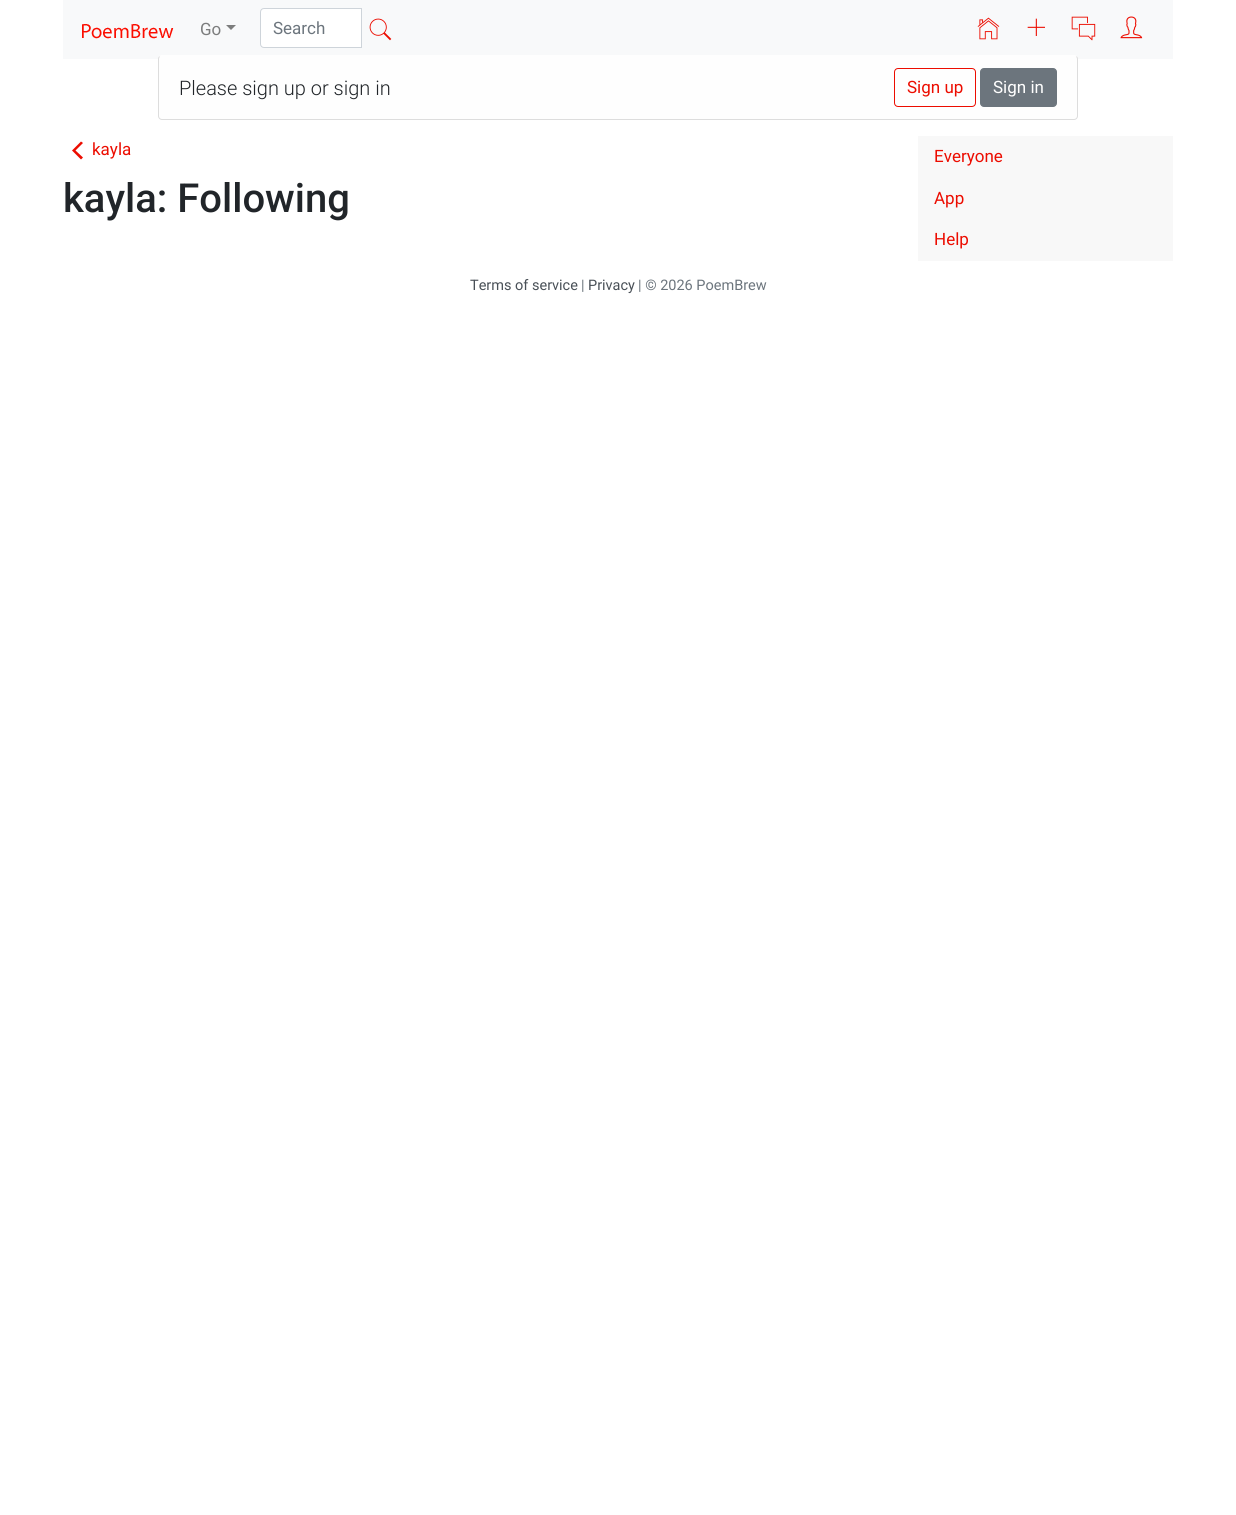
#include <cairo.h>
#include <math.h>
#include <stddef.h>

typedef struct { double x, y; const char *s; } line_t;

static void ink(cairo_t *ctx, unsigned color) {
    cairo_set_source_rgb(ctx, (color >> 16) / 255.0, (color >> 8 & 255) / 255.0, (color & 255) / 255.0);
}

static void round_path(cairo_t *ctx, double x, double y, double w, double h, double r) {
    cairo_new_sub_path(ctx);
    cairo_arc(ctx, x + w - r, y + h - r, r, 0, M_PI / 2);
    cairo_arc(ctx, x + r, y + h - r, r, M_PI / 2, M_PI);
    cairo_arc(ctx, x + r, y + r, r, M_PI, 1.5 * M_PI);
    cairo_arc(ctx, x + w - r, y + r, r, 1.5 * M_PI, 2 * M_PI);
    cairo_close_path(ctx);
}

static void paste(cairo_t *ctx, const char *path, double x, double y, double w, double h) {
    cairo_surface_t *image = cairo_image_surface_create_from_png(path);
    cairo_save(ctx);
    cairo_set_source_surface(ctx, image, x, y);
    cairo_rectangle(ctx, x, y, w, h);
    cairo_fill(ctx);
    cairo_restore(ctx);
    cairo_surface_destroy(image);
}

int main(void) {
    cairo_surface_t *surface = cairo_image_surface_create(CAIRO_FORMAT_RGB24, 1236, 1515);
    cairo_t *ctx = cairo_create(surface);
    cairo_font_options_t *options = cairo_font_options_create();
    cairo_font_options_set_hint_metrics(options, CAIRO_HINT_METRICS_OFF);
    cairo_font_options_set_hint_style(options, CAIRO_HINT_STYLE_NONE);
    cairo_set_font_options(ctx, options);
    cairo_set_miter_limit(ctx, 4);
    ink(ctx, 0xFFFFFF);
    cairo_paint(ctx);
    ink(ctx, 0xF8F9FA);
    cairo_rectangle(ctx, 63, 0, 1110, 59);
    cairo_fill(ctx);
    paste(ctx, "media/1.png", 82, 24, 92, 15);
    cairo_select_font_face(ctx, "Roboto", CAIRO_FONT_SLANT_NORMAL, CAIRO_FONT_WEIGHT_NORMAL);
    cairo_set_font_size(ctx, 17);
    ink(ctx, 0x7C7D7D);
    cairo_move_to(ctx, 200, 35);
    cairo_show_text(ctx, "Go");
    cairo_new_path(ctx);
    cairo_move_to(ctx, 226, 25);
    cairo_line_to(ctx, 236, 25);
    cairo_line_to(ctx, 231, 30);
    cairo_close_path(ctx);
    cairo_fill(ctx);
    ink(ctx, 0xFFFFFF);
    cairo_new_path(ctx);
    cairo_move_to(ctx, 264, 8.5);
    cairo_line_to(ctx, 361.5, 8.5);
    cairo_line_to(ctx, 361.5, 47.5);
    cairo_line_to(ctx, 264, 47.5);
    cairo_curve_to(ctx, 262, 47.5, 260.5, 46, 260.5, 44);
    cairo_line_to(ctx, 260.5, 12);
    cairo_curve_to(ctx, 260.5, 10, 262, 8.5, 264, 8.5);
    cairo_close_path(ctx);
    cairo_fill_preserve(ctx);
    ink(ctx, 0xCED4DA);
    cairo_set_line_width(ctx, 1);
    cairo_stroke(ctx);
    ink(ctx, 0x6C757D);
    cairo_move_to(ctx, 273, 34);
    cairo_show_text(ctx, "Search");
    paste(ctx, "media/2.png", 369, 18, 23, 23);
    paste(ctx, "media/3.png", 977, 17, 23, 23);
    paste(ctx, "media/4.png", 1027, 18, 18, 18);
    paste(ctx, "media/5.png", 1071, 16, 25, 25);
    paste(ctx, "media/6.png", 1120, 16, 23, 23);
    ink(ctx, 0xFEFEFE);
    round_path(ctx, 158, 55, 920, 65, 4);
    cairo_fill(ctx);
    cairo_new_path(ctx);
    cairo_move_to(ctx, 1076.5, 56.5);
    cairo_curve_to(ctx, 1077, 57, 1077.5, 58, 1077.5, 59);
    cairo_line_to(ctx, 1077.5, 116);
    cairo_curve_to(ctx, 1077.5, 117, 1077, 118, 1076.5, 118.5);
    cairo_curve_to(ctx, 1076, 119, 1075, 119.5, 1074, 119.5);
    cairo_line_to(ctx, 162, 119.5);
    cairo_curve_to(ctx, 161, 119.5, 160, 119, 159.5, 118.5);
    cairo_curve_to(ctx, 159, 118, 158.5, 117, 158.5, 116);
    cairo_line_to(ctx, 158.5, 59);
    cairo_curve_to(ctx, 158.5, 58, 159, 57, 159.5, 56.5);
    ink(ctx, 0xDDDDDD);
    cairo_stroke(ctx);
    cairo_select_font_face(ctx, "Roboto Light", CAIRO_FONT_SLANT_NORMAL, CAIRO_FONT_WEIGHT_NORMAL);
    cairo_set_font_size(ctx, 20);
    ink(ctx, 0x212529);
    cairo_move_to(ctx, 179, 95);
    cairo_show_text(ctx, "Please sign up or sign in");
    round_path(ctx, 894.5, 68.5, 81, 38, 3.5);
    ink(ctx, 0xEC0C00);
    cairo_stroke(ctx);
    cairo_select_font_face(ctx, "Roboto", CAIRO_FONT_SLANT_NORMAL, CAIRO_FONT_WEIGHT_NORMAL);
    cairo_set_font_size(ctx, 17);
    cairo_move_to(ctx, 907, 93);
    cairo_show_text(ctx, "Sign up");
    ink(ctx, 0x6C757D);
    round_path(ctx, 980.5, 68.5, 76, 38, 3.5);
    cairo_fill_preserve(ctx);
    cairo_stroke(ctx);
    ink(ctx, 0xFFFFFF);
    cairo_move_to(ctx, 993, 93);
    cairo_show_text(ctx, "Sign in");
    ink(ctx, 0xEC0C00);
    cairo_move_to(ctx, 92, 155);
    cairo_show_text(ctx, "kayla");
    cairo_new_path(ctx);
    cairo_move_to(ctx, 83, 143);
    cairo_line_to(ctx, 81, 141.5);
    cairo_line_to(ctx, 72, 150.5);
    cairo_line_to(ctx, 81, 159.5);
    cairo_line_to(ctx, 83, 157.5);
    cairo_line_to(ctx, 75.5, 150.5);
    cairo_close_path(ctx);
    cairo_fill(ctx);
    cairo_select_font_face(ctx, "Roboto Medium", CAIRO_FONT_SLANT_NORMAL, CAIRO_FONT_WEIGHT_NORMAL);
    cairo_set_font_size(ctx, 40);
    ink(ctx, 0x212529);
    cairo_move_to(ctx, 63, 212);
    cairo_show_text(ctx, "kayla: Following");
    ink(ctx, 0xF8F8F8);
    cairo_rectangle(ctx, 918, 136, 255, 125);
    cairo_fill(ctx);
    cairo_select_font_face(ctx, "Roboto", CAIRO_FONT_SLANT_NORMAL, CAIRO_FONT_WEIGHT_NORMAL);
    cairo_set_font_size(ctx, 17);
    ink(ctx, 0xEC0C00);
    {
        static const line_t items[] = {
            {934, 162, "Everyone"},
            {934, 204, "App"},
            {934, 245, "Help"},
        };
        for (size_t i = 0; i < sizeof items / sizeof *items; i++) {
            cairo_move_to(ctx, items[i].x, items[i].y);
            cairo_show_text(ctx, items[i].s);
        }
    }
    cairo_set_font_size(ctx, 14.5);
    ink(ctx, 0x495057);
    cairo_move_to(ctx, 470, 290);
    cairo_show_text(ctx, "Terms of service");
    ink(ctx, 0x6C757D);
    cairo_move_to(ctx, 581, 290);
    cairo_show_text(ctx, "|");
    ink(ctx, 0x495057);
    cairo_move_to(ctx, 588, 290);
    cairo_show_text(ctx, "Privacy");
    ink(ctx, 0x6C757D);
    cairo_move_to(ctx, 638, 290);
    cairo_show_text(ctx, "| © 2026 PoemBrew");
    cairo_surface_write_to_png(surface, "image.png");
    cairo_font_options_destroy(options);
    cairo_destroy(ctx);
    cairo_surface_destroy(surface);
    return 0;
}
